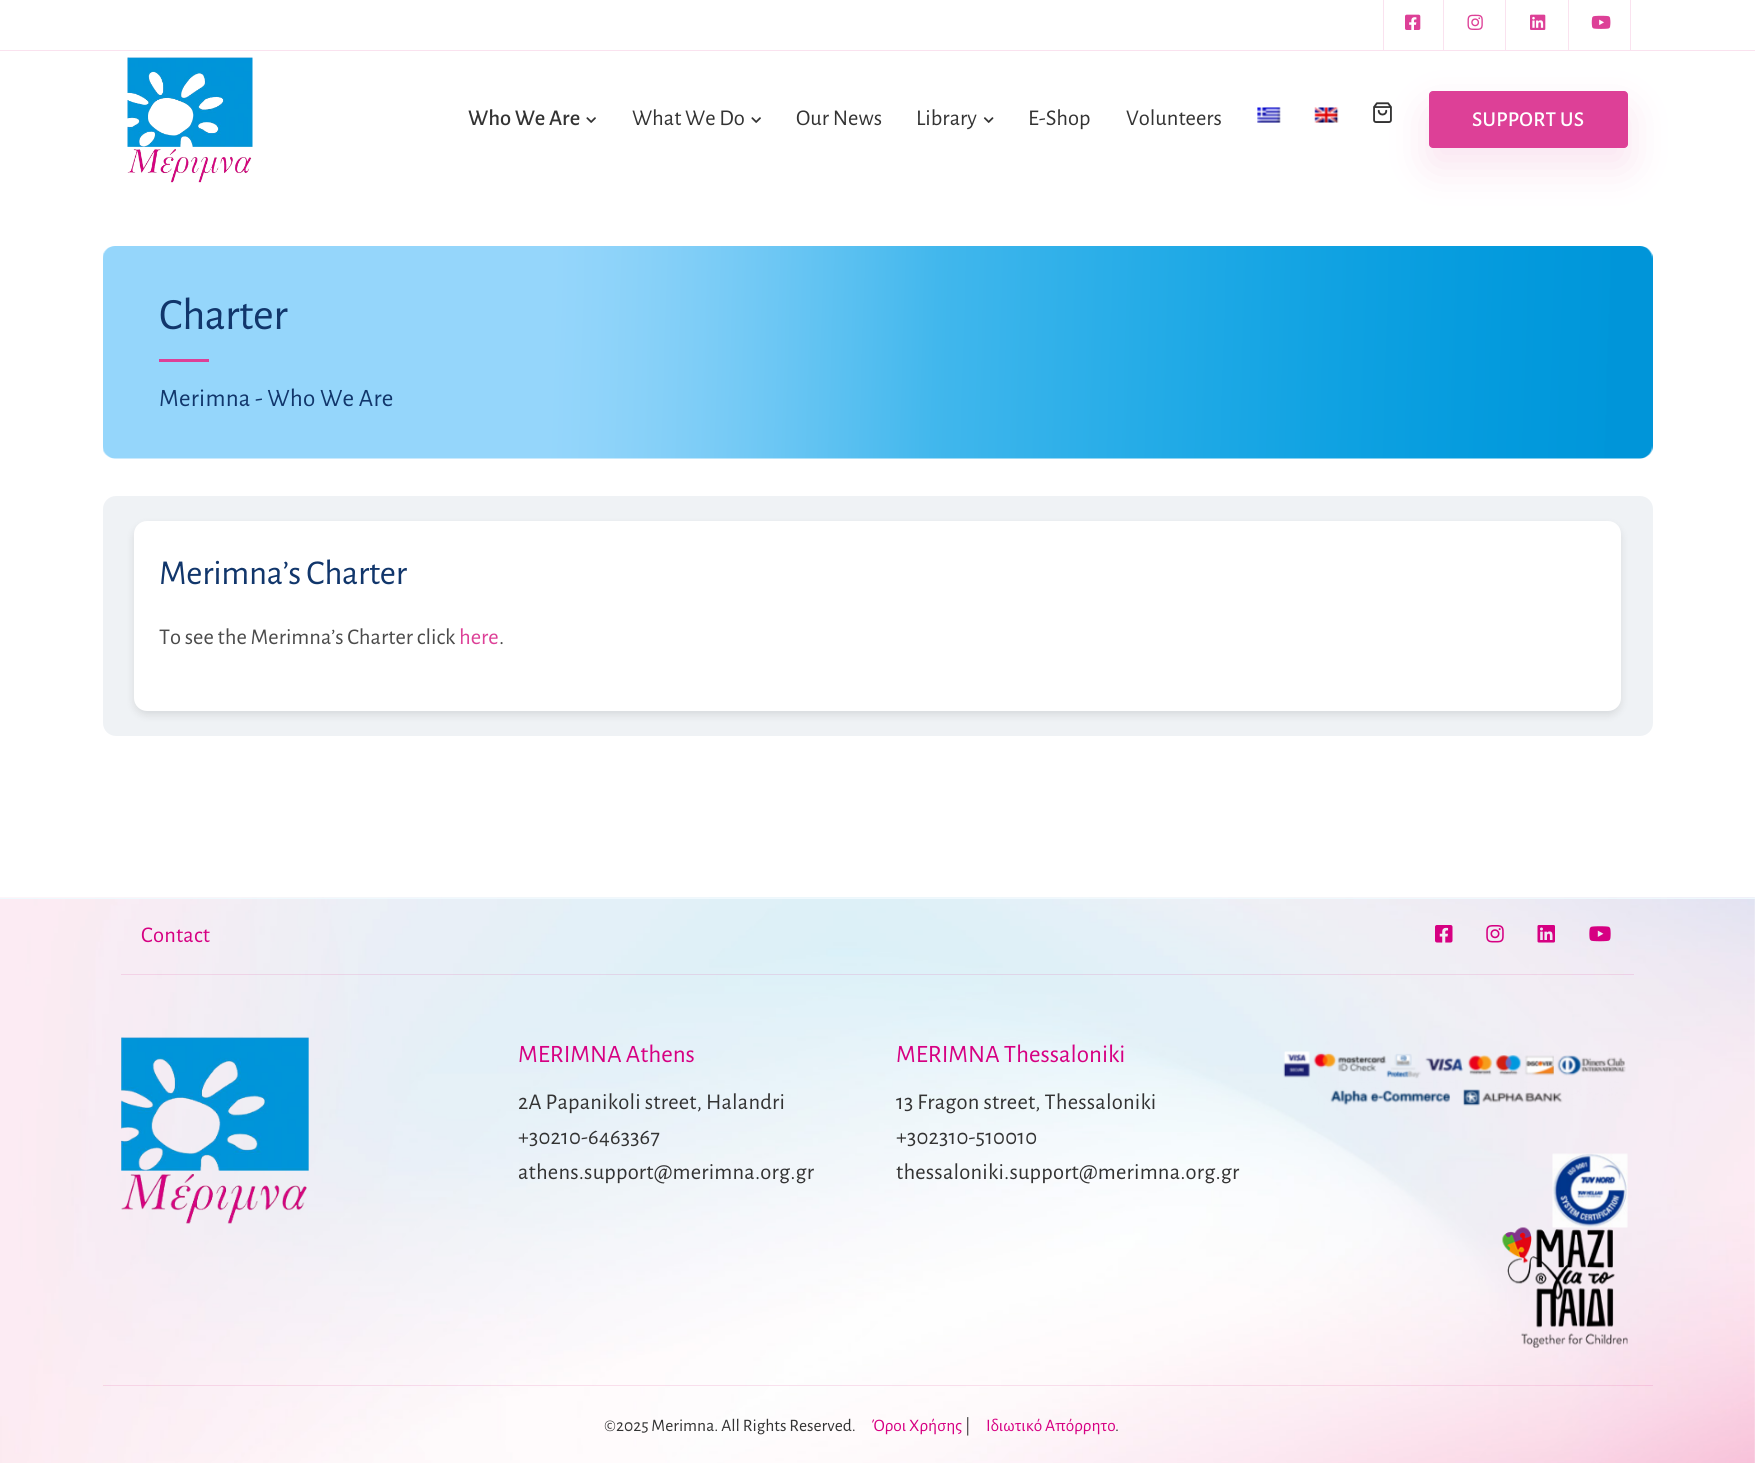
#include <cairo.h>
#include <math.h>
#include <stddef.h>

typedef struct { double x, y; const char *s; } line_t;
typedef struct { double x, y, w, h; unsigned color; } box_t;

static void ink(cairo_t *ctx, unsigned color) {
    cairo_set_source_rgb(ctx, (color >> 16) / 255.0, (color >> 8 & 255) / 255.0, (color & 255) / 255.0);
}

static void write_spaced(cairo_t *ctx, double x, double y, const char *s, double letter, double word) {
    cairo_move_to(ctx, x, y);
    while (*s) {
        char ch[5] = {0};
        int n = 0;
        do ch[n++] = *s++; while ((*s & 0xC0) == 0x80);
        cairo_show_text(ctx, ch);
        cairo_rel_move_to(ctx, letter + word * (*ch == ' '), 0);
    }
}

static void round_path(cairo_t *ctx, double x, double y, double w, double h, double r) {
    cairo_new_sub_path(ctx);
    cairo_arc(ctx, x + w - r, y + h - r, r, 0, M_PI / 2);
    cairo_arc(ctx, x + r, y + h - r, r, M_PI / 2, M_PI);
    cairo_arc(ctx, x + r, y + r, r, M_PI, 1.5 * M_PI);
    cairo_arc(ctx, x + w - r, y + r, r, 1.5 * M_PI, 2 * M_PI);
    cairo_close_path(ctx);
}

static void blur_box(cairo_t *ctx, double x, double y, double w, double h, double r, double blur, double alpha) {
    cairo_push_group_with_content(ctx, CAIRO_CONTENT_ALPHA);
    cairo_set_operator(ctx, CAIRO_OPERATOR_SOURCE);
    for (int i = 15; i >= -15 && fmin(w, h) + blur * i / 3 > 0; i -= 2) {
        double e = blur * i / 6;
        cairo_set_source_rgba(ctx, 0, 0, 0, alpha * erfc((i - 1) / 8.5) / 2);
        round_path(ctx, x - e, y - e, w + 2 * e, h + 2 * e, fmax(0, fmin(r + e + blur * .6, fmin(w, h) / 2 + e)));
        cairo_fill(ctx);
    }
    cairo_pattern_t *soft = cairo_pop_group(ctx);
    cairo_mask(ctx, soft);
    cairo_pattern_destroy(soft);
}

static void paste(cairo_t *ctx, const char *path, double x, double y, double w, double h) {
    cairo_surface_t *image = cairo_image_surface_create_from_png(path);
    cairo_save(ctx);
    cairo_set_source_surface(ctx, image, x, y);
    cairo_rectangle(ctx, x, y, w, h);
    cairo_fill(ctx);
    cairo_restore(ctx);
    cairo_surface_destroy(image);
}

int main(void) {
    cairo_surface_t *surface = cairo_image_surface_create(CAIRO_FORMAT_RGB24, 1755, 1463);
    cairo_t *ctx = cairo_create(surface);
    cairo_font_options_t *options = cairo_font_options_create();
    cairo_font_options_set_hint_metrics(options, CAIRO_HINT_METRICS_OFF);
    cairo_font_options_set_hint_style(options, CAIRO_HINT_STYLE_NONE);
    cairo_set_font_options(ctx, options);
    cairo_set_miter_limit(ctx, 4);
    ink(ctx, 0xFFFFFF);
    cairo_paint(ctx);
    {
        static const box_t items[] = {
            {0, 50, 1755, 1, 0xFAE2EF},
            {1383, 0, 1, 50, 0xFAE2EF},
            {1443, 0, 1, 50, 0xFAE2EF},
        };
        for (size_t i = 0; i < sizeof items / sizeof *items; i++) {
            ink(ctx, items[i].color);
            cairo_rectangle(ctx, items[i].x, items[i].y, items[i].w, items[i].h);
            cairo_fill(ctx);
        }
    }
    paste(ctx, "media/1.png", 1405, 14, 16, 16);
    cairo_rectangle(ctx, 1505, 0, 1, 50);
    cairo_fill(ctx);
    paste(ctx, "media/2.png", 1467, 14, 16, 16);
    cairo_rectangle(ctx, 1568, 0, 1, 50);
    cairo_fill(ctx);
    paste(ctx, "media/3.png", 1530, 14, 16, 16);
    cairo_rectangle(ctx, 1630, 0, 1, 50);
    cairo_fill(ctx);
    paste(ctx, "media/4.png", 1591, 15, 20, 14);
    paste(ctx, "media/5.png", 127, 57, 126, 126);
    cairo_select_font_face(ctx, "Alegreya Sans Medium", CAIRO_FONT_SLANT_NORMAL, CAIRO_FONT_WEIGHT_NORMAL);
    cairo_set_font_size(ctx, 22.5);
    ink(ctx, 0x333333);
    cairo_move_to(ctx, 468, 125);
    cairo_show_text(ctx, "Who We Are");
    paste(ctx, "media/6.png", 586, 117, 10, 6);
    cairo_select_font_face(ctx, "Alegreya Sans", CAIRO_FONT_SLANT_NORMAL, CAIRO_FONT_WEIGHT_NORMAL);
    cairo_move_to(ctx, 632, 125);
    cairo_show_text(ctx, "What We Do");
    paste(ctx, "media/6.png", 751, 117, 10, 6);
    cairo_move_to(ctx, 796, 125);
    cairo_show_text(ctx, "Our News");
    cairo_move_to(ctx, 916, 125);
    cairo_show_text(ctx, "Library");
    paste(ctx, "media/7.png", 983, 117, 11, 6);
    cairo_move_to(ctx, 1028, 125);
    cairo_show_text(ctx, "E-Shop");
    cairo_move_to(ctx, 1126, 125);
    cairo_show_text(ctx, "Volunteers");
    paste(ctx, "media/8.png", 1257, 107, 24, 16);
    paste(ctx, "media/9.png", 1314, 107, 25, 16);
    ink(ctx, 0xDD4097);
    blur_box(ctx, 1429, 110, 199, 56, 4, 22, 0.15);
    paste(ctx, "media/10.png", 1373, 102, 19, 21);
    ink(ctx, 0xDD4097);
    round_path(ctx, 1429.5, 91.5, 198, 56, 3.5);
    cairo_fill_preserve(ctx);
    cairo_set_line_width(ctx, 1);
    cairo_stroke(ctx);
    cairo_select_font_face(ctx, "Alegreya Sans Medium", CAIRO_FONT_SLANT_NORMAL, CAIRO_FONT_WEIGHT_NORMAL);
    cairo_set_font_size(ctx, 21.25);
    ink(ctx, 0xFFFFFF);
    write_spaced(ctx, 1472, 126, "SUPPORT US", 0.25, 0);
    paste(ctx, "media/11.png", 103, 246, 1550, 213);
    cairo_select_font_face(ctx, "Alegreya Sans", CAIRO_FONT_SLANT_NORMAL, CAIRO_FONT_WEIGHT_NORMAL);
    cairo_set_font_size(ctx, 45);
    ink(ctx, 0x11366B);
    write_spaced(ctx, 159, 329, "Charter", -0.5, 0);
    ink(ctx, 0xDD4097);
    cairo_rectangle(ctx, 159, 359, 50, 3);
    cairo_fill(ctx);
    cairo_set_font_size(ctx, 25);
    ink(ctx, 0x11366B);
    write_spaced(ctx, 159, 406, "Merimna - Who We Are", 0.25, 0);
    ink(ctx, 0xEFF2F5);
    round_path(ctx, 103, 496, 1550, 240, 13);
    cairo_fill(ctx);
    ink(ctx, 0x000000);
    blur_box(ctx, 134, 525, 1487, 190, 13, 4, 0.1);
    ink(ctx, 0xFFFFFF);
    round_path(ctx, 134, 521, 1487, 190, 13);
    cairo_fill(ctx);
    cairo_set_font_size(ctx, 35);
    ink(ctx, 0x11366B);
    write_spaced(ctx, 159, 584, "Merimna’s Charter", -0.3, 0);
    cairo_set_font_size(ctx, 22.5);
    ink(ctx, 0x4B4B4B);
    cairo_move_to(ctx, 159, 644);
    cairo_show_text(ctx, "To see the Merimna’s Charter click");
    ink(ctx, 0xDD4097);
    cairo_move_to(ctx, 459, 644);
    cairo_show_text(ctx, "here");
    ink(ctx, 0x4B4B4B);
    cairo_move_to(ctx, 499, 644);
    cairo_show_text(ctx, ".");
    paste(ctx, "media/12.png", 0, 897, 1755, 566);
    ink(ctx, 0xEFF9FE);
    cairo_rectangle(ctx, 0, 898, 1755, 1);
    cairo_fill(ctx);
    cairo_set_source_rgba(ctx, 0.867, 0.251, 0.592, 0.15);
    cairo_rectangle(ctx, 121, 974, 1513, 1);
    cairo_fill(ctx);
    ink(ctx, 0xD60082);
    write_spaced(ctx, 141, 942, "Contact", 0.2, 0);
    paste(ctx, "media/13.png", 1435, 925, 18, 18);
    paste(ctx, "media/14.png", 1486, 925, 18, 18);
    paste(ctx, "media/15.png", 1537, 925, 18, 18);
    paste(ctx, "media/16.png", 1589, 926, 22, 16);
    paste(ctx, "media/17.png", 121, 1037, 188, 187);
    cairo_set_font_size(ctx, 25);
    cairo_move_to(ctx, 518, 1062);
    cairo_show_text(ctx, "MERIMNA Athens");
    cairo_set_font_size(ctx, 22.5);
    ink(ctx, 0x333333);
    {
        static const line_t items[] = {
            {518, 1109, "2A Papanikoli street, Halandri"},
            {518, 1144, "+30210-6463367"},
            {518, 1179, "athens.support@merimna.org.gr"},
        };
        for (size_t i = 0; i < sizeof items / sizeof *items; i++) {
            write_spaced(ctx, items[i].x, items[i].y, items[i].s, 0.2, 0);
        }
    }
    cairo_set_font_size(ctx, 25);
    ink(ctx, 0xD60082);
    cairo_move_to(ctx, 896, 1062);
    cairo_show_text(ctx, "MERIMNA Thessaloniki");
    cairo_set_font_size(ctx, 22.5);
    ink(ctx, 0x333333);
    {
        static const line_t items[] = {
            {896, 1109, "13 Fragon street, Thessaloniki"},
            {896, 1144, "+302310-510010"},
            {896, 1179, "thessaloniki.support@merimna.org.gr"},
        };
        for (size_t i = 0; i < sizeof items / sizeof *items; i++) {
            write_spaced(ctx, items[i].x, items[i].y, items[i].s, 0.2, 0);
        }
    }
    paste(ctx, "media/18.png", 1283, 1051, 343, 55);
    paste(ctx, "media/19.png", 1552, 1153, 76, 75);
    paste(ctx, "media/20.png", 1502, 1227, 126, 121);
    cairo_set_source_rgba(ctx, 0.867, 0.251, 0.592, 0.15);
    cairo_rectangle(ctx, 103, 1385, 1550, 1);
    cairo_fill(ctx);
    cairo_set_font_size(ctx, 17.5);
    ink(ctx, 0x333333);
    cairo_move_to(ctx, 604, 1431);
    cairo_show_text(ctx, "©2025 Merimna. All Rights Reserved.");
    ink(ctx, 0xD60082);
    cairo_move_to(ctx, 872, 1431);
    cairo_show_text(ctx, "Όροι Χρήσης");
    ink(ctx, 0x333333);
    cairo_move_to(ctx, 965, 1431);
    cairo_show_text(ctx, "|");
    ink(ctx, 0xD60082);
    cairo_move_to(ctx, 986, 1431);
    cairo_show_text(ctx, "Ιδιωτικό Απόρρητο");
    ink(ctx, 0x333333);
    cairo_move_to(ctx, 1115, 1431);
    cairo_show_text(ctx, ".");
    cairo_surface_write_to_png(surface, "image.png");
    cairo_font_options_destroy(options);
    cairo_destroy(ctx);
    cairo_surface_destroy(surface);
    return 0;
}
